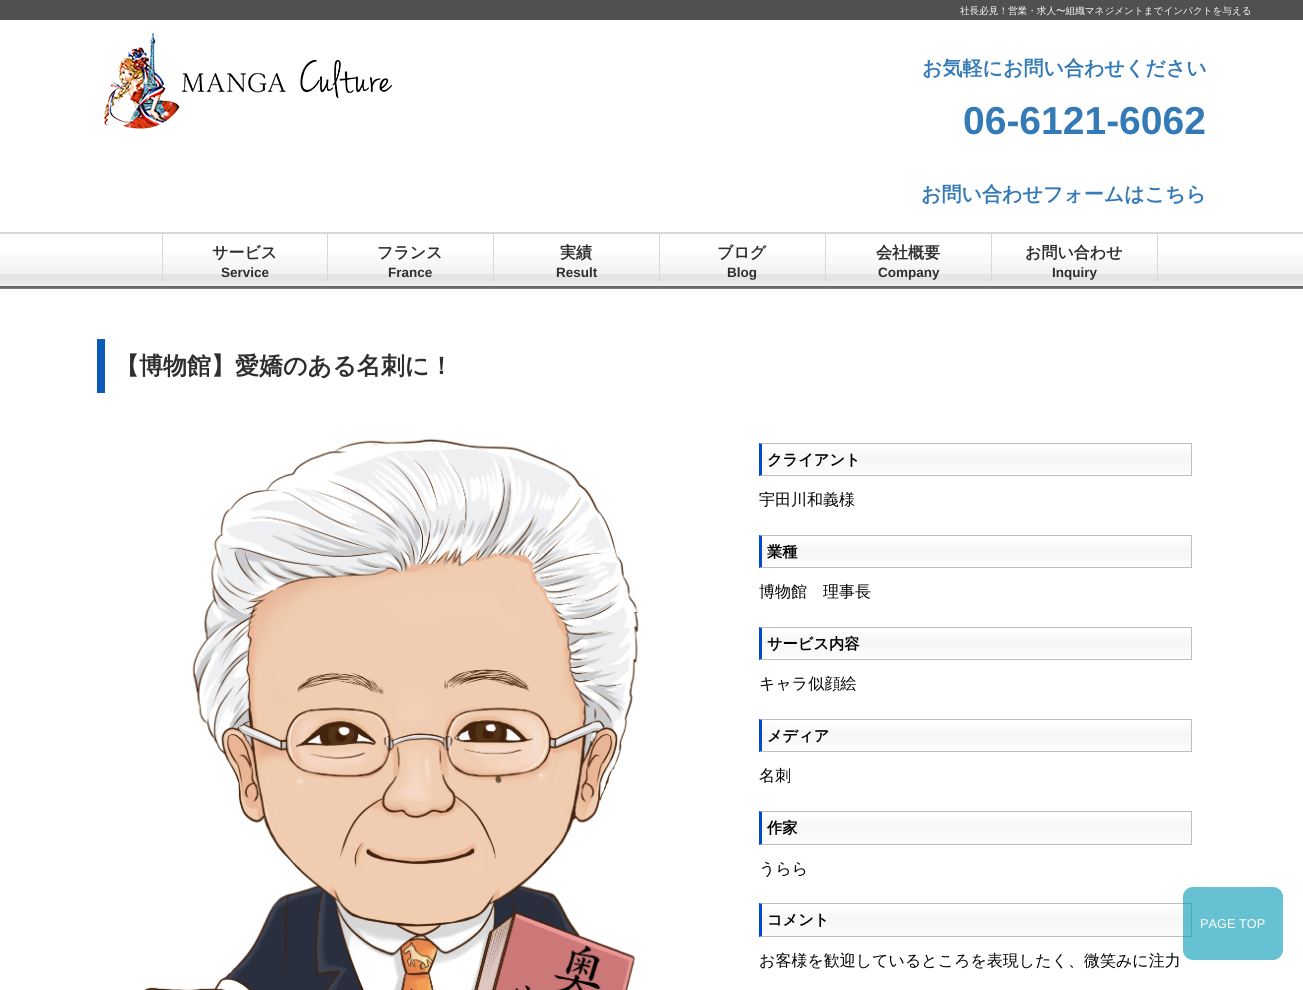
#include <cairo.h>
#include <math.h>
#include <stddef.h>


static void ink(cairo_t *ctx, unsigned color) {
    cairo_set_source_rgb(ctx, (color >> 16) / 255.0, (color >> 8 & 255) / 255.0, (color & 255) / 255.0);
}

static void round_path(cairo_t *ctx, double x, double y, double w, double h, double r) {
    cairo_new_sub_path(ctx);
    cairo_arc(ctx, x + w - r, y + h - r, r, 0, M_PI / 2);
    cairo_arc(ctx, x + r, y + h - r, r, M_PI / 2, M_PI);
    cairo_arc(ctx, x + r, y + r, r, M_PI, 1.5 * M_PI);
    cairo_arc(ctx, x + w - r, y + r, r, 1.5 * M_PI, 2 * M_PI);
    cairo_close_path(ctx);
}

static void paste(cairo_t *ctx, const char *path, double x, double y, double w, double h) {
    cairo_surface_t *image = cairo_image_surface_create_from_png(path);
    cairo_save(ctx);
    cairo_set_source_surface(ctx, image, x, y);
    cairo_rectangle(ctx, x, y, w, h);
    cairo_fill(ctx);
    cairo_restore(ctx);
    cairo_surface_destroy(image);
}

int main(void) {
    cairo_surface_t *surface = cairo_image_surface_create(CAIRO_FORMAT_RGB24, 1303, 990);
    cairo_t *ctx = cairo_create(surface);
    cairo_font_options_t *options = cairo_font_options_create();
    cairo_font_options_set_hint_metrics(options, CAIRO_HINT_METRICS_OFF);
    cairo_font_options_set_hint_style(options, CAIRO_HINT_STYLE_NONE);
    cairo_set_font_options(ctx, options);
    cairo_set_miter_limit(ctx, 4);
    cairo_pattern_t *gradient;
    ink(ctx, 0xFFFFFF);
    cairo_paint(ctx);
    ink(ctx, 0x505050);
    cairo_rectangle(ctx, 0, 0, 1303, 20);
    cairo_fill(ctx);
    cairo_select_font_face(ctx, "WenQuanYi Zen Hei Medium", CAIRO_FONT_SLANT_NORMAL, CAIRO_FONT_WEIGHT_NORMAL);
    cairo_set_font_size(ctx, 9.6);
    ink(ctx, 0xFFFFFF);
    cairo_move_to(ctx, 960, 14);
    cairo_show_text(ctx, "社長必見！営業・求人〜組織マネジメントまでインパクトを与える");
    paste(ctx, "media/1.png", 104, 33, 288, 96);
    cairo_select_font_face(ctx, "WenQuanYi Zen Hei", CAIRO_FONT_SLANT_NORMAL, CAIRO_FONT_WEIGHT_BOLD);
    cairo_set_font_size(ctx, 20);
    ink(ctx, 0x337AB7);
    cairo_move_to(ctx, 922, 75);
    cairo_show_text(ctx, "お気軽にお問い合わせください");
    cairo_select_font_face(ctx, "Liberation Sans", CAIRO_FONT_SLANT_NORMAL, CAIRO_FONT_WEIGHT_BOLD);
    cairo_set_font_size(ctx, 39);
    cairo_move_to(ctx, 963, 134);
    cairo_show_text(ctx, "06-6121-6062");
    cairo_select_font_face(ctx, "WenQuanYi Zen Hei", CAIRO_FONT_SLANT_NORMAL, CAIRO_FONT_WEIGHT_BOLD);
    cairo_set_font_size(ctx, 20);
    cairo_move_to(ctx, 921, 201);
    cairo_show_text(ctx, "お問い合わせフォームはこちら");
    paste(ctx, "media/2.png", 0, 232, 1303, 57);
    ink(ctx, 0xD9D9D9);
    cairo_rectangle(ctx, 327, 232, 1, 50);
    cairo_fill(ctx);
    cairo_rectangle(ctx, 162, 232, 1, 50);
    cairo_fill(ctx);
    cairo_set_font_size(ctx, 16);
    ink(ctx, 0x2E2E2E);
    cairo_move_to(ctx, 212, 258);
    cairo_show_text(ctx, "サービス");
    cairo_select_font_face(ctx, "Liberation Sans", CAIRO_FONT_SLANT_NORMAL, CAIRO_FONT_WEIGHT_BOLD);
    cairo_set_font_size(ctx, 13.5);
    cairo_move_to(ctx, 221, 277);
    cairo_show_text(ctx, "Service");
    ink(ctx, 0xD9D9D9);
    cairo_rectangle(ctx, 493, 232, 1, 50);
    cairo_fill(ctx);
    cairo_select_font_face(ctx, "WenQuanYi Zen Hei", CAIRO_FONT_SLANT_NORMAL, CAIRO_FONT_WEIGHT_BOLD);
    cairo_set_font_size(ctx, 16);
    ink(ctx, 0x2E2E2E);
    cairo_move_to(ctx, 377, 258);
    cairo_show_text(ctx, "フランス");
    cairo_select_font_face(ctx, "Liberation Sans", CAIRO_FONT_SLANT_NORMAL, CAIRO_FONT_WEIGHT_BOLD);
    cairo_set_font_size(ctx, 13.5);
    cairo_move_to(ctx, 388, 277);
    cairo_show_text(ctx, "France");
    ink(ctx, 0xD9D9D9);
    cairo_rectangle(ctx, 659, 232, 1, 50);
    cairo_fill(ctx);
    cairo_select_font_face(ctx, "WenQuanYi Zen Hei", CAIRO_FONT_SLANT_NORMAL, CAIRO_FONT_WEIGHT_BOLD);
    cairo_set_font_size(ctx, 16);
    ink(ctx, 0x2E2E2E);
    cairo_move_to(ctx, 560, 258);
    cairo_show_text(ctx, "実績");
    cairo_select_font_face(ctx, "Liberation Sans", CAIRO_FONT_SLANT_NORMAL, CAIRO_FONT_WEIGHT_BOLD);
    cairo_set_font_size(ctx, 13.5);
    cairo_move_to(ctx, 556, 277);
    cairo_show_text(ctx, "Result");
    ink(ctx, 0xD9D9D9);
    cairo_rectangle(ctx, 825, 232, 1, 50);
    cairo_fill(ctx);
    cairo_select_font_face(ctx, "WenQuanYi Zen Hei", CAIRO_FONT_SLANT_NORMAL, CAIRO_FONT_WEIGHT_BOLD);
    cairo_set_font_size(ctx, 16);
    ink(ctx, 0x2E2E2E);
    cairo_move_to(ctx, 717, 258);
    cairo_show_text(ctx, "ブログ");
    cairo_select_font_face(ctx, "Liberation Sans", CAIRO_FONT_SLANT_NORMAL, CAIRO_FONT_WEIGHT_BOLD);
    cairo_set_font_size(ctx, 13.5);
    cairo_move_to(ctx, 727, 277);
    cairo_show_text(ctx, "Blog");
    ink(ctx, 0xD9D9D9);
    cairo_rectangle(ctx, 991, 232, 1, 50);
    cairo_fill(ctx);
    cairo_select_font_face(ctx, "WenQuanYi Zen Hei", CAIRO_FONT_SLANT_NORMAL, CAIRO_FONT_WEIGHT_BOLD);
    cairo_set_font_size(ctx, 16);
    ink(ctx, 0x2E2E2E);
    cairo_move_to(ctx, 876, 258);
    cairo_show_text(ctx, "会社概要");
    cairo_select_font_face(ctx, "Liberation Sans", CAIRO_FONT_SLANT_NORMAL, CAIRO_FONT_WEIGHT_BOLD);
    cairo_set_font_size(ctx, 13.5);
    cairo_move_to(ctx, 878, 277);
    cairo_show_text(ctx, "Company");
    ink(ctx, 0xD9D9D9);
    cairo_rectangle(ctx, 1157, 232, 1, 50);
    cairo_fill(ctx);
    cairo_select_font_face(ctx, "WenQuanYi Zen Hei", CAIRO_FONT_SLANT_NORMAL, CAIRO_FONT_WEIGHT_BOLD);
    cairo_set_font_size(ctx, 16);
    ink(ctx, 0x2E2E2E);
    cairo_move_to(ctx, 1025, 258);
    cairo_show_text(ctx, "お問い合わせ");
    cairo_select_font_face(ctx, "Liberation Sans", CAIRO_FONT_SLANT_NORMAL, CAIRO_FONT_WEIGHT_BOLD);
    cairo_set_font_size(ctx, 13.5);
    cairo_move_to(ctx, 1052, 277);
    cairo_show_text(ctx, "Inquiry");
    ink(ctx, 0x0B59B9);
    cairo_rectangle(ctx, 97, 339, 8, 54);
    cairo_fill(ctx);
    cairo_select_font_face(ctx, "WenQuanYi Zen Hei", CAIRO_FONT_SLANT_NORMAL, CAIRO_FONT_WEIGHT_BOLD);
    cairo_set_font_size(ctx, 24);
    ink(ctx, 0x2E2E2E);
    cairo_move_to(ctx, 115, 374);
    cairo_show_text(ctx, "【博物館】愛嬌のある名刺に！");
    paste(ctx, "media/3.png", 144, 438, 495, 552);
    gradient = cairo_pattern_create_linear(977, 444, 977, 475);
    cairo_pattern_add_color_stop_rgba(gradient, 0, 1, 1, 1, 1);
    cairo_pattern_add_color_stop_rgba(gradient, 0.5, 0.961, 0.961, 0.961, 1);
    cairo_pattern_add_color_stop_rgba(gradient, 0.51, 0.969, 0.969, 0.969, 1);
    cairo_pattern_add_color_stop_rgba(gradient, 1, 0.988, 0.988, 0.988, 1);
    cairo_set_source(ctx, gradient);
    cairo_pattern_destroy(gradient);
    cairo_rectangle(ctx, 762, 448, 429, 27);
    cairo_fill(ctx);
    ink(ctx, 0xBFBFBF);
    cairo_new_path(ctx);
    cairo_move_to(ctx, 759, 443);
    cairo_line_to(ctx, 1192, 443);
    cairo_line_to(ctx, 1191, 444);
    cairo_line_to(ctx, 762, 444);
    cairo_close_path(ctx);
    cairo_fill(ctx);
    cairo_rectangle(ctx, 1191, 443, 1, 33);
    cairo_fill(ctx);
    cairo_new_path(ctx);
    cairo_move_to(ctx, 1192, 476);
    cairo_line_to(ctx, 759, 476);
    cairo_line_to(ctx, 762, 475);
    cairo_line_to(ctx, 1191, 475);
    cairo_close_path(ctx);
    cairo_fill(ctx);
    ink(ctx, 0x0049D3);
    cairo_new_path(ctx);
    cairo_move_to(ctx, 759, 476);
    cairo_line_to(ctx, 759, 443);
    cairo_line_to(ctx, 762, 444);
    cairo_line_to(ctx, 762, 475);
    cairo_close_path(ctx);
    cairo_fill(ctx);
    cairo_set_font_size(ctx, 15.25);
    ink(ctx, 0x000000);
    cairo_move_to(ctx, 767, 465);
    cairo_show_text(ctx, "クライアント");
    cairo_select_font_face(ctx, "WenQuanYi Zen Hei Medium", CAIRO_FONT_SLANT_NORMAL, CAIRO_FONT_WEIGHT_NORMAL);
    cairo_set_font_size(ctx, 16);
    cairo_move_to(ctx, 759, 505);
    cairo_show_text(ctx, "宇田川和義様");
    gradient = cairo_pattern_create_linear(977, 536, 977, 567);
    cairo_pattern_add_color_stop_rgba(gradient, 0, 1, 1, 1, 1);
    cairo_pattern_add_color_stop_rgba(gradient, 0.5, 0.961, 0.961, 0.961, 1);
    cairo_pattern_add_color_stop_rgba(gradient, 0.51, 0.969, 0.969, 0.969, 1);
    cairo_pattern_add_color_stop_rgba(gradient, 1, 0.988, 0.988, 0.988, 1);
    cairo_set_source(ctx, gradient);
    cairo_pattern_destroy(gradient);
    cairo_rectangle(ctx, 762, 540, 429, 27);
    cairo_fill(ctx);
    ink(ctx, 0xBFBFBF);
    cairo_new_path(ctx);
    cairo_move_to(ctx, 759, 535);
    cairo_line_to(ctx, 1192, 535);
    cairo_line_to(ctx, 1191, 536);
    cairo_line_to(ctx, 762, 536);
    cairo_close_path(ctx);
    cairo_fill(ctx);
    cairo_rectangle(ctx, 1191, 535, 1, 33);
    cairo_fill(ctx);
    cairo_new_path(ctx);
    cairo_move_to(ctx, 1192, 568);
    cairo_line_to(ctx, 759, 568);
    cairo_line_to(ctx, 762, 567);
    cairo_line_to(ctx, 1191, 567);
    cairo_close_path(ctx);
    cairo_fill(ctx);
    ink(ctx, 0x0049D3);
    cairo_new_path(ctx);
    cairo_move_to(ctx, 759, 568);
    cairo_line_to(ctx, 759, 535);
    cairo_line_to(ctx, 762, 536);
    cairo_line_to(ctx, 762, 567);
    cairo_close_path(ctx);
    cairo_fill(ctx);
    cairo_select_font_face(ctx, "WenQuanYi Zen Hei", CAIRO_FONT_SLANT_NORMAL, CAIRO_FONT_WEIGHT_BOLD);
    cairo_set_font_size(ctx, 15.25);
    ink(ctx, 0x000000);
    cairo_move_to(ctx, 767, 557);
    cairo_show_text(ctx, "業種");
    cairo_select_font_face(ctx, "WenQuanYi Zen Hei Medium", CAIRO_FONT_SLANT_NORMAL, CAIRO_FONT_WEIGHT_NORMAL);
    cairo_set_font_size(ctx, 16);
    cairo_move_to(ctx, 759, 597);
    cairo_show_text(ctx, "博物館　理事長");
    gradient = cairo_pattern_create_linear(977, 628, 977, 659);
    cairo_pattern_add_color_stop_rgba(gradient, 0, 1, 1, 1, 1);
    cairo_pattern_add_color_stop_rgba(gradient, 0.5, 0.961, 0.961, 0.961, 1);
    cairo_pattern_add_color_stop_rgba(gradient, 0.51, 0.969, 0.969, 0.969, 1);
    cairo_pattern_add_color_stop_rgba(gradient, 1, 0.988, 0.988, 0.988, 1);
    cairo_set_source(ctx, gradient);
    cairo_pattern_destroy(gradient);
    cairo_rectangle(ctx, 762, 632, 429, 27);
    cairo_fill(ctx);
    ink(ctx, 0xBFBFBF);
    cairo_new_path(ctx);
    cairo_move_to(ctx, 759, 627);
    cairo_line_to(ctx, 1192, 627);
    cairo_line_to(ctx, 1191, 628);
    cairo_line_to(ctx, 762, 628);
    cairo_close_path(ctx);
    cairo_fill(ctx);
    cairo_rectangle(ctx, 1191, 627, 1, 33);
    cairo_fill(ctx);
    cairo_new_path(ctx);
    cairo_move_to(ctx, 1192, 660);
    cairo_line_to(ctx, 759, 660);
    cairo_line_to(ctx, 762, 659);
    cairo_line_to(ctx, 1191, 659);
    cairo_close_path(ctx);
    cairo_fill(ctx);
    ink(ctx, 0x0049D3);
    cairo_new_path(ctx);
    cairo_move_to(ctx, 759, 660);
    cairo_line_to(ctx, 759, 627);
    cairo_line_to(ctx, 762, 628);
    cairo_line_to(ctx, 762, 659);
    cairo_close_path(ctx);
    cairo_fill(ctx);
    cairo_select_font_face(ctx, "WenQuanYi Zen Hei", CAIRO_FONT_SLANT_NORMAL, CAIRO_FONT_WEIGHT_BOLD);
    cairo_set_font_size(ctx, 15.25);
    ink(ctx, 0x000000);
    cairo_move_to(ctx, 767, 649);
    cairo_show_text(ctx, "サービス内容");
    cairo_select_font_face(ctx, "WenQuanYi Zen Hei Medium", CAIRO_FONT_SLANT_NORMAL, CAIRO_FONT_WEIGHT_NORMAL);
    cairo_set_font_size(ctx, 16);
    cairo_move_to(ctx, 759, 689);
    cairo_show_text(ctx, "キャラ似顔絵");
    gradient = cairo_pattern_create_linear(977, 720, 977, 751);
    cairo_pattern_add_color_stop_rgba(gradient, 0, 1, 1, 1, 1);
    cairo_pattern_add_color_stop_rgba(gradient, 0.5, 0.961, 0.961, 0.961, 1);
    cairo_pattern_add_color_stop_rgba(gradient, 0.51, 0.969, 0.969, 0.969, 1);
    cairo_pattern_add_color_stop_rgba(gradient, 1, 0.988, 0.988, 0.988, 1);
    cairo_set_source(ctx, gradient);
    cairo_pattern_destroy(gradient);
    cairo_rectangle(ctx, 762, 724, 429, 27);
    cairo_fill(ctx);
    ink(ctx, 0xBFBFBF);
    cairo_new_path(ctx);
    cairo_move_to(ctx, 759, 719);
    cairo_line_to(ctx, 1192, 719);
    cairo_line_to(ctx, 1191, 720);
    cairo_line_to(ctx, 762, 720);
    cairo_close_path(ctx);
    cairo_fill(ctx);
    cairo_rectangle(ctx, 1191, 719, 1, 33);
    cairo_fill(ctx);
    cairo_new_path(ctx);
    cairo_move_to(ctx, 1192, 752);
    cairo_line_to(ctx, 759, 752);
    cairo_line_to(ctx, 762, 751);
    cairo_line_to(ctx, 1191, 751);
    cairo_close_path(ctx);
    cairo_fill(ctx);
    ink(ctx, 0x0049D3);
    cairo_new_path(ctx);
    cairo_move_to(ctx, 759, 752);
    cairo_line_to(ctx, 759, 719);
    cairo_line_to(ctx, 762, 720);
    cairo_line_to(ctx, 762, 751);
    cairo_close_path(ctx);
    cairo_fill(ctx);
    cairo_select_font_face(ctx, "WenQuanYi Zen Hei", CAIRO_FONT_SLANT_NORMAL, CAIRO_FONT_WEIGHT_BOLD);
    cairo_set_font_size(ctx, 15.25);
    ink(ctx, 0x000000);
    cairo_move_to(ctx, 767, 741);
    cairo_show_text(ctx, "メディア");
    cairo_select_font_face(ctx, "WenQuanYi Zen Hei Medium", CAIRO_FONT_SLANT_NORMAL, CAIRO_FONT_WEIGHT_NORMAL);
    cairo_set_font_size(ctx, 16);
    cairo_move_to(ctx, 759, 781);
    cairo_show_text(ctx, "名刺");
    gradient = cairo_pattern_create_linear(977, 812, 977, 844);
    cairo_pattern_add_color_stop_rgba(gradient, 0, 1, 1, 1, 1);
    cairo_pattern_add_color_stop_rgba(gradient, 0.5, 0.961, 0.961, 0.961, 1);
    cairo_pattern_add_color_stop_rgba(gradient, 0.51, 0.969, 0.969, 0.969, 1);
    cairo_pattern_add_color_stop_rgba(gradient, 1, 0.988, 0.988, 0.988, 1);
    cairo_set_source(ctx, gradient);
    cairo_pattern_destroy(gradient);
    cairo_rectangle(ctx, 762, 816, 429, 28);
    cairo_fill(ctx);
    ink(ctx, 0xBFBFBF);
    cairo_new_path(ctx);
    cairo_move_to(ctx, 759, 811);
    cairo_line_to(ctx, 1192, 811);
    cairo_line_to(ctx, 1191, 812);
    cairo_line_to(ctx, 762, 812);
    cairo_close_path(ctx);
    cairo_fill(ctx);
    cairo_rectangle(ctx, 1191, 811, 1, 34);
    cairo_fill(ctx);
    cairo_new_path(ctx);
    cairo_move_to(ctx, 1192, 845);
    cairo_line_to(ctx, 759, 845);
    cairo_line_to(ctx, 762, 844);
    cairo_line_to(ctx, 1191, 844);
    cairo_close_path(ctx);
    cairo_fill(ctx);
    ink(ctx, 0x0049D3);
    cairo_new_path(ctx);
    cairo_move_to(ctx, 759, 845);
    cairo_line_to(ctx, 759, 811);
    cairo_line_to(ctx, 762, 812);
    cairo_line_to(ctx, 762, 844);
    cairo_close_path(ctx);
    cairo_fill(ctx);
    cairo_select_font_face(ctx, "WenQuanYi Zen Hei", CAIRO_FONT_SLANT_NORMAL, CAIRO_FONT_WEIGHT_BOLD);
    cairo_set_font_size(ctx, 15.25);
    ink(ctx, 0x000000);
    cairo_move_to(ctx, 767, 833);
    cairo_show_text(ctx, "作家");
    cairo_select_font_face(ctx, "WenQuanYi Zen Hei Medium", CAIRO_FONT_SLANT_NORMAL, CAIRO_FONT_WEIGHT_NORMAL);
    cairo_set_font_size(ctx, 16);
    cairo_move_to(ctx, 759, 874);
    cairo_show_text(ctx, "うらら");
    gradient = cairo_pattern_create_linear(977, 904, 977, 936);
    cairo_pattern_add_color_stop_rgba(gradient, 0, 1, 1, 1, 1);
    cairo_pattern_add_color_stop_rgba(gradient, 0.5, 0.961, 0.961, 0.961, 1);
    cairo_pattern_add_color_stop_rgba(gradient, 0.51, 0.969, 0.969, 0.969, 1);
    cairo_pattern_add_color_stop_rgba(gradient, 1, 0.988, 0.988, 0.988, 1);
    cairo_set_source(ctx, gradient);
    cairo_pattern_destroy(gradient);
    cairo_rectangle(ctx, 762, 908, 429, 28);
    cairo_fill(ctx);
    ink(ctx, 0xBFBFBF);
    cairo_new_path(ctx);
    cairo_move_to(ctx, 759, 903);
    cairo_line_to(ctx, 1192, 903);
    cairo_line_to(ctx, 1191, 904);
    cairo_line_to(ctx, 762, 904);
    cairo_close_path(ctx);
    cairo_fill(ctx);
    cairo_rectangle(ctx, 1191, 903, 1, 34);
    cairo_fill(ctx);
    cairo_new_path(ctx);
    cairo_move_to(ctx, 1192, 937);
    cairo_line_to(ctx, 759, 937);
    cairo_line_to(ctx, 762, 936);
    cairo_line_to(ctx, 1191, 936);
    cairo_close_path(ctx);
    cairo_fill(ctx);
    ink(ctx, 0x0049D3);
    cairo_new_path(ctx);
    cairo_move_to(ctx, 759, 937);
    cairo_line_to(ctx, 759, 903);
    cairo_line_to(ctx, 762, 904);
    cairo_line_to(ctx, 762, 936);
    cairo_close_path(ctx);
    cairo_fill(ctx);
    cairo_select_font_face(ctx, "WenQuanYi Zen Hei", CAIRO_FONT_SLANT_NORMAL, CAIRO_FONT_WEIGHT_BOLD);
    cairo_set_font_size(ctx, 15.25);
    ink(ctx, 0x000000);
    cairo_move_to(ctx, 767, 925);
    cairo_show_text(ctx, "コメント");
    cairo_select_font_face(ctx, "WenQuanYi Zen Hei Medium", CAIRO_FONT_SLANT_NORMAL, CAIRO_FONT_WEIGHT_NORMAL);
    cairo_set_font_size(ctx, 16);
    cairo_move_to(ctx, 759, 966);
    cairo_show_text(ctx, "お客様を歓迎しているところを表現したく、微笑みに注力");
    cairo_set_source_rgba(ctx, 0, 0.6, 0.706, 0.6);
    round_path(ctx, 1183, 887, 100, 73, 10);
    cairo_fill(ctx);
    cairo_select_font_face(ctx, "Liberation Sans", CAIRO_FONT_SLANT_NORMAL, CAIRO_FONT_WEIGHT_NORMAL);
    cairo_set_font_size(ctx, 12.75);
    ink(ctx, 0xFFFFFF);
    cairo_move_to(ctx, 1200, 928);
    cairo_show_text(ctx, "PAGE TOP");
    cairo_surface_write_to_png(surface, "image.png");
    cairo_font_options_destroy(options);
    cairo_destroy(ctx);
    cairo_surface_destroy(surface);
    return 0;
}
